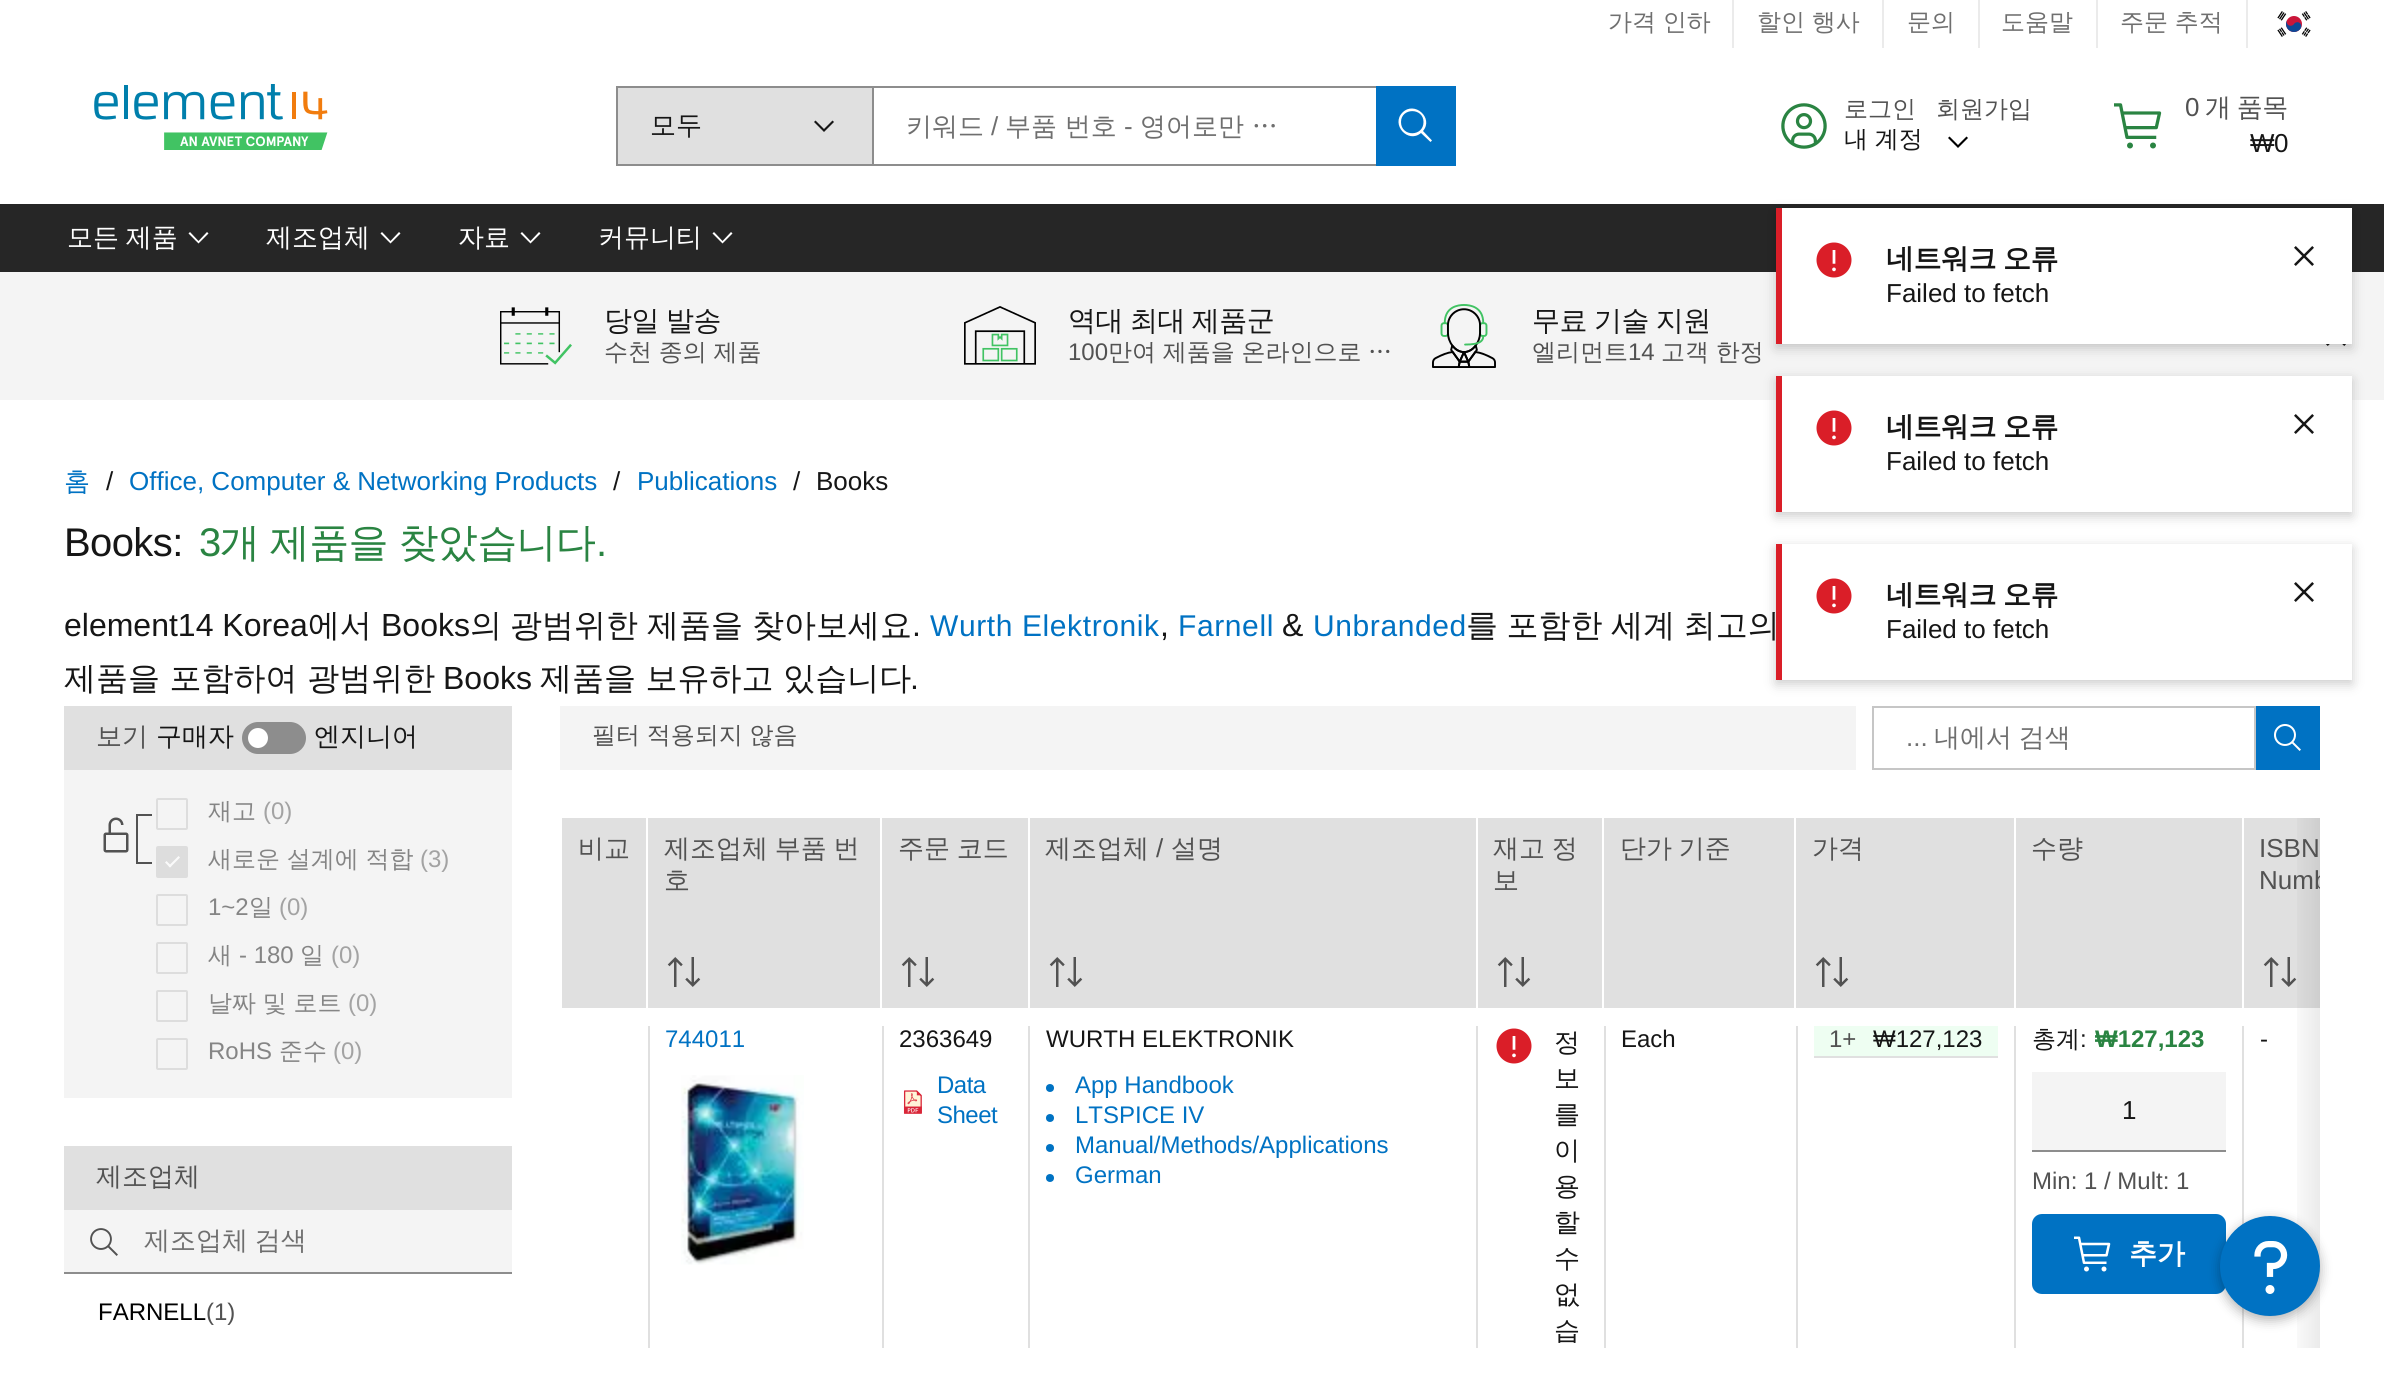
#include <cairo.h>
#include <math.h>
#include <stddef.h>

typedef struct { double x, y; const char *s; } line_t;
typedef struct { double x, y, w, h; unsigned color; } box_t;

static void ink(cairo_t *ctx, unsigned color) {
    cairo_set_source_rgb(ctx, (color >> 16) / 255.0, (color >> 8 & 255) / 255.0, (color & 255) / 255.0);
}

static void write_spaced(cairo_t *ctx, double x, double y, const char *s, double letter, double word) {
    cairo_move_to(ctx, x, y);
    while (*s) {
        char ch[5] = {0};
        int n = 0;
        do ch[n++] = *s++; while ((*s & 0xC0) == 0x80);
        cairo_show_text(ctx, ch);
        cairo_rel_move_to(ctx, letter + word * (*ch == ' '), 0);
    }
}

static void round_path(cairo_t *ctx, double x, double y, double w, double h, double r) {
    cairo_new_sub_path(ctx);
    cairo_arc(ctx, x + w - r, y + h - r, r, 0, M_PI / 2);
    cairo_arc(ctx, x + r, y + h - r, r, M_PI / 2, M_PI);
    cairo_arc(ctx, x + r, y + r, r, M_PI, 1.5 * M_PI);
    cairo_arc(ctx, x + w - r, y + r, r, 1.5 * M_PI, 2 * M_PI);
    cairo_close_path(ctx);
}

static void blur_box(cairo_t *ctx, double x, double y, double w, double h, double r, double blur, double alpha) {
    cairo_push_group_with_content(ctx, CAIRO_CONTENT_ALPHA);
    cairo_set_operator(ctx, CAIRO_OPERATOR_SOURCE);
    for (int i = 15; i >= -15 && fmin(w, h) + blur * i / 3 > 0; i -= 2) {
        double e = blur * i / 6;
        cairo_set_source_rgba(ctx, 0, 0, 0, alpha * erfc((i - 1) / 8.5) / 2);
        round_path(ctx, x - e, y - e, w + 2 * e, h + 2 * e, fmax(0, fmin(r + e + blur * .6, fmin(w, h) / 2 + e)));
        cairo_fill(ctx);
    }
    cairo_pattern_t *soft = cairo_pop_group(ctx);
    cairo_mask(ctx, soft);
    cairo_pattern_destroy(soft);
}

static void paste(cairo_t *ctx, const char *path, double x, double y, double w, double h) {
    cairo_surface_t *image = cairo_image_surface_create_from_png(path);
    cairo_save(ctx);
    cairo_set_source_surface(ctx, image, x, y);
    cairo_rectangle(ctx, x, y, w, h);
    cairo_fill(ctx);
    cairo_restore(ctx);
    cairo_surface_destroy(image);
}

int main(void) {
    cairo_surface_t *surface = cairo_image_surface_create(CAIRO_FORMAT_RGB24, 2384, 1380);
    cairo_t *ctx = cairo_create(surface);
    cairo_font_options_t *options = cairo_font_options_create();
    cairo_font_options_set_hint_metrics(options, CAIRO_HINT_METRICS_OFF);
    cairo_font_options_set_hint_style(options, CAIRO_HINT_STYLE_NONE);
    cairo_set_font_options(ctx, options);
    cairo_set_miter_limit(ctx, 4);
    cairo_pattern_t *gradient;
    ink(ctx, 0xFFFFFF);
    cairo_paint(ctx);
    ink(ctx, 0xEBEBEB);
    cairo_rectangle(ctx, 1732, 0, 2, 48);
    cairo_fill(ctx);
    cairo_select_font_face(ctx, "WenQuanYi Zen Hei Medium", CAIRO_FONT_SLANT_NORMAL, CAIRO_FONT_WEIGHT_NORMAL);
    cairo_set_font_size(ctx, 24);
    ink(ctx, 0x6F6F6F);
    write_spaced(ctx, 1608, 30, "가격 인하", 0, -0.5);
    ink(ctx, 0xEBEBEB);
    cairo_rectangle(ctx, 1882, 0, 2, 48);
    cairo_fill(ctx);
    ink(ctx, 0x6F6F6F);
    write_spaced(ctx, 1757, 30, "할인 행사", 0, -0.5);
    ink(ctx, 0xEBEBEB);
    cairo_rectangle(ctx, 1978, 0, 2, 48);
    cairo_fill(ctx);
    ink(ctx, 0x6F6F6F);
    cairo_move_to(ctx, 1907, 30);
    cairo_show_text(ctx, "문의");
    ink(ctx, 0xEBEBEB);
    cairo_rectangle(ctx, 2096, 0, 2, 48);
    cairo_fill(ctx);
    ink(ctx, 0x6F6F6F);
    cairo_move_to(ctx, 2001, 30);
    cairo_show_text(ctx, "도움말");
    ink(ctx, 0xEBEBEB);
    cairo_rectangle(ctx, 2246, 0, 2, 48);
    cairo_fill(ctx);
    ink(ctx, 0x6F6F6F);
    write_spaced(ctx, 2120, 30, "주문 추적", 0, -0.5);
    paste(ctx, "media/1.png", 2277, 11, 34, 26);
    paste(ctx, "media/2.png", 94, 84, 234, 66);
    {
        static const box_t items[] = {
            {618, 88, 254, 76, 0xE0E0E0},
            {616, 86, 760, 2, 0x8D8D8D},
            {616, 164, 760, 2, 0x8D8D8D},
            {616, 86, 2, 80, 0x8D8D8D},
        };
        for (size_t i = 0; i < sizeof items / sizeof *items; i++) {
            ink(ctx, items[i].color);
            cairo_rectangle(ctx, items[i].x, items[i].y, items[i].w, items[i].h);
            cairo_fill(ctx);
        }
    }
    cairo_set_font_size(ctx, 26);
    ink(ctx, 0x161616);
    cairo_move_to(ctx, 650, 134);
    cairo_show_text(ctx, "모두");
    cairo_new_path(ctx);
    cairo_move_to(ctx, 824, 132);
    cairo_line_to(ctx, 814, 122);
    cairo_line_to(ctx, 815.5, 120.5);
    cairo_line_to(ctx, 824, 129);
    cairo_line_to(ctx, 832.5, 120.5);
    cairo_line_to(ctx, 834, 122);
    cairo_close_path(ctx);
    cairo_fill(ctx);
    ink(ctx, 0x8D8D8D);
    cairo_rectangle(ctx, 872, 86, 2, 80);
    cairo_fill(ctx);
    ink(ctx, 0x6F6F6F);
    cairo_move_to(ctx, 906, 135);
    cairo_show_text(ctx, "키워드");
    cairo_select_font_face(ctx, "Liberation Sans", CAIRO_FONT_SLANT_NORMAL, CAIRO_FONT_WEIGHT_NORMAL);
    cairo_move_to(ctx, 991, 135);
    cairo_show_text(ctx, "/");
    cairo_select_font_face(ctx, "WenQuanYi Zen Hei Medium", CAIRO_FONT_SLANT_NORMAL, CAIRO_FONT_WEIGHT_NORMAL);
    cairo_move_to(ctx, 1005, 135);
    cairo_show_text(ctx, "부품 번호");
    cairo_select_font_face(ctx, "Liberation Sans", CAIRO_FONT_SLANT_NORMAL, CAIRO_FONT_WEIGHT_NORMAL);
    cairo_move_to(ctx, 1124, 135);
    cairo_show_text(ctx, "-");
    cairo_select_font_face(ctx, "WenQuanYi Zen Hei Medium", CAIRO_FONT_SLANT_NORMAL, CAIRO_FONT_WEIGHT_NORMAL);
    cairo_move_to(ctx, 1140, 135);
    cairo_show_text(ctx, "영어로만 …");
    ink(ctx, 0x0072C3);
    cairo_rectangle(ctx, 1376, 86, 80, 80);
    cairo_fill(ctx);
    ink(ctx, 0xFFFFFF);
    cairo_new_path(ctx);
    cairo_move_to(ctx, 1432, 140.5);
    cairo_line_to(ctx, 1423, 131);
    cairo_curve_to(ctx, 1434, 118, 1414.5, 100.5, 1402.5, 112.5);
    cairo_curve_to(ctx, 1390.5, 124.5, 1408, 144, 1421, 133);
    cairo_line_to(ctx, 1430.5, 142);
    cairo_close_path(ctx);
    cairo_move_to(ctx, 1401, 122);
    cairo_curve_to(ctx, 1401, 107.5, 1423.5, 107.5, 1423.5, 122);
    cairo_curve_to(ctx, 1423.5, 137, 1401, 137, 1401, 122);
    cairo_close_path(ctx);
    cairo_fill(ctx);
    paste(ctx, "media/3.png", 1781, 103, 46, 46);
    cairo_set_font_size(ctx, 24);
    ink(ctx, 0x525252);
    cairo_move_to(ctx, 1844, 117);
    cairo_show_text(ctx, "로그인");
    cairo_move_to(ctx, 1936, 117);
    cairo_show_text(ctx, "회원가입");
    ink(ctx, 0x161616);
    write_spaced(ctx, 1844, 147, "내 계정", 0, -0.5);
    ink(ctx, 0x000000);
    cairo_new_path(ctx);
    cairo_move_to(ctx, 1958, 148);
    cairo_line_to(ctx, 1948, 138);
    cairo_line_to(ctx, 1949.5, 136.5);
    cairo_line_to(ctx, 1958, 145);
    cairo_line_to(ctx, 1966.5, 136.5);
    cairo_line_to(ctx, 1968, 138);
    cairo_close_path(ctx);
    cairo_fill(ctx);
    paste(ctx, "media/4.png", 2114, 103, 48, 46);
    cairo_select_font_face(ctx, "Liberation Sans", CAIRO_FONT_SLANT_NORMAL, CAIRO_FONT_WEIGHT_NORMAL);
    cairo_set_font_size(ctx, 26);
    ink(ctx, 0x525252);
    write_spaced(ctx, 2185, 116, "0", -0.5, 0);
    cairo_select_font_face(ctx, "WenQuanYi Zen Hei Medium", CAIRO_FONT_SLANT_NORMAL, CAIRO_FONT_WEIGHT_NORMAL);
    write_spaced(ctx, 2205, 116, "개 품목", -0.5, -1);
    cairo_select_font_face(ctx, "Liberation Sans", CAIRO_FONT_SLANT_NORMAL, CAIRO_FONT_WEIGHT_NORMAL);
    ink(ctx, 0x161616);
    write_spaced(ctx, 2250, 152, "₩0", -0.5, 0);
    ink(ctx, 0x262626);
    cairo_rectangle(ctx, 0, 204, 2384, 68);
    cairo_fill(ctx);
    cairo_select_font_face(ctx, "WenQuanYi Zen Hei Medium", CAIRO_FONT_SLANT_NORMAL, CAIRO_FONT_WEIGHT_NORMAL);
    ink(ctx, 0xFFFFFF);
    write_spaced(ctx, 67, 246, "모든 제품", 0, -1);
    cairo_new_path(ctx);
    cairo_move_to(ctx, 198.5, 243.5);
    cairo_line_to(ctx, 188.5, 233.5);
    cairo_line_to(ctx, 190, 232);
    cairo_line_to(ctx, 198.5, 241);
    cairo_line_to(ctx, 207, 232);
    cairo_line_to(ctx, 208.5, 233.5);
    cairo_close_path(ctx);
    cairo_fill(ctx);
    cairo_move_to(ctx, 266, 246);
    cairo_show_text(ctx, "제조업체");
    cairo_new_path(ctx);
    cairo_move_to(ctx, 390.5, 243.5);
    cairo_line_to(ctx, 380.5, 233.5);
    cairo_line_to(ctx, 382, 232);
    cairo_line_to(ctx, 390.5, 241);
    cairo_line_to(ctx, 399, 232);
    cairo_line_to(ctx, 400.5, 233.5);
    cairo_close_path(ctx);
    cairo_fill(ctx);
    cairo_move_to(ctx, 458, 246);
    cairo_show_text(ctx, "자료");
    cairo_new_path(ctx);
    cairo_move_to(ctx, 530.5, 243.5);
    cairo_line_to(ctx, 520.5, 233.5);
    cairo_line_to(ctx, 522, 232);
    cairo_line_to(ctx, 530.5, 241);
    cairo_line_to(ctx, 539, 232);
    cairo_line_to(ctx, 540.5, 233.5);
    cairo_close_path(ctx);
    cairo_fill(ctx);
    cairo_move_to(ctx, 598, 246);
    cairo_show_text(ctx, "커뮤니티");
    cairo_new_path(ctx);
    cairo_move_to(ctx, 722.5, 243.5);
    cairo_line_to(ctx, 712.5, 233.5);
    cairo_line_to(ctx, 714, 232);
    cairo_line_to(ctx, 722.5, 241);
    cairo_line_to(ctx, 731, 232);
    cairo_line_to(ctx, 732.5, 233.5);
    cairo_close_path(ctx);
    cairo_fill(ctx);
    ink(ctx, 0xF4F4F4);
    cairo_rectangle(ctx, 0, 272, 2384, 128);
    cairo_fill(ctx);
    paste(ctx, "media/10.png", 2326, 344, 20, 2);
    ink(ctx, 0x000000);
    blur_box(ctx, 1776, 212, 576, 136, 0, 6, 0.2);
    ink(ctx, 0xFFFFFF);
    cairo_rectangle(ctx, 1782, 208, 570, 136);
    cairo_fill(ctx);
    ink(ctx, 0xDA1E28);
    cairo_rectangle(ctx, 1776, 208, 6, 136);
    cairo_fill(ctx);
    paste(ctx, "media/5.png", 1816, 242, 36, 36);
    cairo_select_font_face(ctx, "WenQuanYi Zen Hei", CAIRO_FONT_SLANT_NORMAL, CAIRO_FONT_WEIGHT_BOLD);
    cairo_set_font_size(ctx, 28);
    ink(ctx, 0x161616);
    write_spaced(ctx, 1886, 268, "네트워크 오류", -0.5, -1);
    cairo_select_font_face(ctx, "Liberation Sans", CAIRO_FONT_SLANT_NORMAL, CAIRO_FONT_WEIGHT_NORMAL);
    cairo_set_font_size(ctx, 26);
    cairo_move_to(ctx, 1886, 302);
    cairo_show_text(ctx, "Failed to fetch");
    paste(ctx, "media/6.png", 2294, 246, 20, 20);
    ink(ctx, 0x000000);
    blur_box(ctx, 1776, 380, 576, 136, 0, 6, 0.2);
    ink(ctx, 0xFFFFFF);
    cairo_rectangle(ctx, 1782, 376, 570, 136);
    cairo_fill(ctx);
    ink(ctx, 0xDA1E28);
    cairo_rectangle(ctx, 1776, 376, 6, 136);
    cairo_fill(ctx);
    paste(ctx, "media/5.png", 1816, 410, 36, 36);
    cairo_select_font_face(ctx, "WenQuanYi Zen Hei", CAIRO_FONT_SLANT_NORMAL, CAIRO_FONT_WEIGHT_BOLD);
    cairo_set_font_size(ctx, 28);
    ink(ctx, 0x161616);
    write_spaced(ctx, 1886, 436, "네트워크 오류", -0.5, -1);
    cairo_select_font_face(ctx, "Liberation Sans", CAIRO_FONT_SLANT_NORMAL, CAIRO_FONT_WEIGHT_NORMAL);
    cairo_set_font_size(ctx, 26);
    cairo_move_to(ctx, 1886, 470);
    cairo_show_text(ctx, "Failed to fetch");
    paste(ctx, "media/6.png", 2294, 414, 20, 20);
    ink(ctx, 0x000000);
    blur_box(ctx, 1776, 548, 576, 136, 0, 6, 0.2);
    ink(ctx, 0xFFFFFF);
    cairo_rectangle(ctx, 1782, 544, 570, 136);
    cairo_fill(ctx);
    cairo_select_font_face(ctx, "WenQuanYi Zen Hei Medium", CAIRO_FONT_SLANT_NORMAL, CAIRO_FONT_WEIGHT_NORMAL);
    cairo_set_font_size(ctx, 32);
    ink(ctx, 0x161616);
    write_spaced(ctx, 1466, 636, "를 포함한 세계 최고의", 0, -1);
    ink(ctx, 0xDA1E28);
    cairo_rectangle(ctx, 1776, 544, 6, 136);
    cairo_fill(ctx);
    paste(ctx, "media/5.png", 1816, 578, 36, 36);
    cairo_select_font_face(ctx, "WenQuanYi Zen Hei", CAIRO_FONT_SLANT_NORMAL, CAIRO_FONT_WEIGHT_BOLD);
    cairo_set_font_size(ctx, 28);
    ink(ctx, 0x161616);
    write_spaced(ctx, 1886, 604, "네트워크 오류", -0.5, -1);
    cairo_select_font_face(ctx, "Liberation Sans", CAIRO_FONT_SLANT_NORMAL, CAIRO_FONT_WEIGHT_NORMAL);
    cairo_set_font_size(ctx, 26);
    cairo_move_to(ctx, 1886, 638);
    cairo_show_text(ctx, "Failed to fetch");
    paste(ctx, "media/6.png", 2294, 582, 20, 20);
    paste(ctx, "media/7.png", 500, 307, 72, 58);
    cairo_select_font_face(ctx, "WenQuanYi Zen Hei Medium", CAIRO_FONT_SLANT_NORMAL, CAIRO_FONT_WEIGHT_NORMAL);
    cairo_set_font_size(ctx, 28);
    write_spaced(ctx, 604, 330, "당일 발송", -0.5, -1);
    cairo_set_font_size(ctx, 24);
    ink(ctx, 0x525252);
    write_spaced(ctx, 604, 360, "수천 종의 제품", 0, -0.5);
    paste(ctx, "media/8.png", 964, 306, 72, 59);
    cairo_set_font_size(ctx, 28);
    ink(ctx, 0x161616);
    write_spaced(ctx, 1068, 330, "역대 최대 제품군", -0.5, -1);
    cairo_select_font_face(ctx, "Liberation Sans", CAIRO_FONT_SLANT_NORMAL, CAIRO_FONT_WEIGHT_NORMAL);
    cairo_set_font_size(ctx, 24);
    ink(ctx, 0x525252);
    cairo_move_to(ctx, 1068, 360);
    cairo_show_text(ctx, "100");
    cairo_select_font_face(ctx, "WenQuanYi Zen Hei Medium", CAIRO_FONT_SLANT_NORMAL, CAIRO_FONT_WEIGHT_NORMAL);
    write_spaced(ctx, 1108, 360, "만여 제품을 온라인으로 …", 0, -0.5);
    paste(ctx, "media/9.png", 1432, 304, 64, 64);
    cairo_set_font_size(ctx, 28);
    ink(ctx, 0x161616);
    write_spaced(ctx, 1532, 330, "무료 기술 지원", -0.5, -1);
    cairo_set_font_size(ctx, 24);
    ink(ctx, 0x525252);
    cairo_move_to(ctx, 1532, 360);
    cairo_show_text(ctx, "엘리먼트");
    cairo_select_font_face(ctx, "Liberation Sans", CAIRO_FONT_SLANT_NORMAL, CAIRO_FONT_WEIGHT_NORMAL);
    cairo_move_to(ctx, 1628, 360);
    cairo_show_text(ctx, "14");
    cairo_select_font_face(ctx, "WenQuanYi Zen Hei Medium", CAIRO_FONT_SLANT_NORMAL, CAIRO_FONT_WEIGHT_NORMAL);
    write_spaced(ctx, 1661, 360, "고객 한정", 0, -0.5);
    cairo_set_font_size(ctx, 26);
    ink(ctx, 0x0072C3);
    cairo_move_to(ctx, 64, 490);
    cairo_show_text(ctx, "홈");
    cairo_select_font_face(ctx, "Liberation Sans", CAIRO_FONT_SLANT_NORMAL, CAIRO_FONT_WEIGHT_NORMAL);
    ink(ctx, 0x161616);
    cairo_move_to(ctx, 106, 490);
    cairo_show_text(ctx, "/");
    ink(ctx, 0x0072C3);
    cairo_move_to(ctx, 129, 490);
    cairo_show_text(ctx, "Office, Computer & Networking Products");
    ink(ctx, 0x161616);
    cairo_move_to(ctx, 613, 490);
    cairo_show_text(ctx, "/");
    ink(ctx, 0x0072C3);
    cairo_move_to(ctx, 637, 490);
    cairo_show_text(ctx, "Publications");
    ink(ctx, 0x161616);
    cairo_move_to(ctx, 793, 490);
    cairo_show_text(ctx, "/");
    cairo_move_to(ctx, 816, 490);
    cairo_show_text(ctx, "Books");
    cairo_set_font_size(ctx, 40);
    write_spaced(ctx, 64, 556, "Books:", -0.6, 0);
    ink(ctx, 0x2A8442);
    write_spaced(ctx, 199, 556, "3", -0.6, 0);
    cairo_select_font_face(ctx, "WenQuanYi Zen Hei Medium", CAIRO_FONT_SLANT_NORMAL, CAIRO_FONT_WEIGHT_NORMAL);
    write_spaced(ctx, 220, 556, "개 제품을 찾았습니다", -0.6, -1);
    cairo_select_font_face(ctx, "Liberation Sans", CAIRO_FONT_SLANT_NORMAL, CAIRO_FONT_WEIGHT_NORMAL);
    write_spaced(ctx, 596, 556, ".", -0.6, 0);
    cairo_set_font_size(ctx, 32);
    ink(ctx, 0x161616);
    cairo_move_to(ctx, 64, 636);
    cairo_show_text(ctx, "element14 Korea");
    cairo_select_font_face(ctx, "WenQuanYi Zen Hei Medium", CAIRO_FONT_SLANT_NORMAL, CAIRO_FONT_WEIGHT_NORMAL);
    cairo_move_to(ctx, 308, 636);
    cairo_show_text(ctx, "에서");
    cairo_select_font_face(ctx, "Liberation Sans", CAIRO_FONT_SLANT_NORMAL, CAIRO_FONT_WEIGHT_NORMAL);
    cairo_move_to(ctx, 381, 636);
    cairo_show_text(ctx, "Books");
    cairo_select_font_face(ctx, "WenQuanYi Zen Hei Medium", CAIRO_FONT_SLANT_NORMAL, CAIRO_FONT_WEIGHT_NORMAL);
    {
        static const line_t items[] = {
            {470, 636, "의"},
            {510, 636, "광범위한"},
            {647, 636, "제품을"},
            {752, 636, "찾아보세요"},
        };
        for (size_t i = 0; i < sizeof items / sizeof *items; i++) {
            cairo_move_to(ctx, items[i].x, items[i].y);
            cairo_show_text(ctx, items[i].s);
        }
    }
    cairo_select_font_face(ctx, "Liberation Sans", CAIRO_FONT_SLANT_NORMAL, CAIRO_FONT_WEIGHT_NORMAL);
    cairo_move_to(ctx, 912, 636);
    cairo_show_text(ctx, ".");
    cairo_set_font_size(ctx, 30);
    ink(ctx, 0x0072C3);
    write_spaced(ctx, 930, 636, "Wurth Elektronik", 0.6, 0);
    cairo_set_font_size(ctx, 32);
    ink(ctx, 0x161616);
    cairo_move_to(ctx, 1160, 636);
    cairo_show_text(ctx, ",");
    cairo_set_font_size(ctx, 30);
    ink(ctx, 0x0072C3);
    write_spaced(ctx, 1178, 636, "Farnell", 0.6, 0);
    cairo_set_font_size(ctx, 32);
    ink(ctx, 0x161616);
    cairo_move_to(ctx, 1282, 636);
    cairo_show_text(ctx, "&");
    cairo_set_font_size(ctx, 30);
    ink(ctx, 0x0072C3);
    write_spaced(ctx, 1313, 636, "Unbranded", 0.6, 0);
    cairo_select_font_face(ctx, "WenQuanYi Zen Hei Medium", CAIRO_FONT_SLANT_NORMAL, CAIRO_FONT_WEIGHT_NORMAL);
    cairo_set_font_size(ctx, 32);
    ink(ctx, 0x161616);
    cairo_move_to(ctx, 64, 689);
    cairo_show_text(ctx, "제품을 포함하여 광범위한");
    cairo_select_font_face(ctx, "Liberation Sans", CAIRO_FONT_SLANT_NORMAL, CAIRO_FONT_WEIGHT_NORMAL);
    cairo_move_to(ctx, 443, 689);
    cairo_show_text(ctx, "Books");
    cairo_select_font_face(ctx, "WenQuanYi Zen Hei Medium", CAIRO_FONT_SLANT_NORMAL, CAIRO_FONT_WEIGHT_NORMAL);
    cairo_move_to(ctx, 540, 689);
    cairo_show_text(ctx, "제품을 보유하고 있습니다");
    cairo_select_font_face(ctx, "Liberation Sans", CAIRO_FONT_SLANT_NORMAL, CAIRO_FONT_WEIGHT_NORMAL);
    cairo_move_to(ctx, 910, 689);
    cairo_show_text(ctx, ".");
    ink(ctx, 0xF4F4F4);
    cairo_rectangle(ctx, 64, 770, 448, 328);
    cairo_fill(ctx);
    ink(ctx, 0xE0E0E0);
    cairo_rectangle(ctx, 64, 706, 448, 64);
    cairo_fill(ctx);
    cairo_select_font_face(ctx, "WenQuanYi Zen Hei Medium", CAIRO_FONT_SLANT_NORMAL, CAIRO_FONT_WEIGHT_NORMAL);
    cairo_set_font_size(ctx, 26);
    ink(ctx, 0x525252);
    cairo_move_to(ctx, 96, 745);
    cairo_show_text(ctx, "보기");
    ink(ctx, 0x161616);
    cairo_move_to(ctx, 156, 745);
    cairo_show_text(ctx, "구매자");
    ink(ctx, 0x8D8D8D);
    round_path(ctx, 242, 722, 64, 32, 16);
    cairo_fill(ctx);
    ink(ctx, 0xFFFFFF);
    cairo_arc(ctx, 258, 738, 10, 0, 2 * M_PI);
    cairo_fill(ctx);
    ink(ctx, 0x161616);
    cairo_move_to(ctx, 314, 745);
    cairo_show_text(ctx, "엔지니어");
    ink(ctx, 0x525252);
    cairo_rectangle(ctx, 136, 814, 2, 48);
    cairo_fill(ctx);
    round_path(ctx, 157, 799, 30, 30, 1);
    ink(ctx, 0xDDDDDD);
    cairo_stroke(ctx);
    cairo_set_font_size(ctx, 24);
    ink(ctx, 0x858585);
    cairo_move_to(ctx, 208, 819);
    cairo_show_text(ctx, "재고");
    cairo_select_font_face(ctx, "Liberation Sans", CAIRO_FONT_SLANT_NORMAL, CAIRO_FONT_WEIGHT_NORMAL);
    ink(ctx, 0xA3A3A3);
    cairo_move_to(ctx, 263, 819);
    cairo_show_text(ctx, "(0)");
    ink(ctx, 0x525252);
    cairo_rectangle(ctx, 136, 814, 16, 2);
    cairo_fill(ctx);
    paste(ctx, "media/11.png", 103, 817, 26, 36);
    cairo_rectangle(ctx, 136, 862, 16, 2);
    cairo_fill(ctx);
    ink(ctx, 0xDDDDDD);
    round_path(ctx, 157, 847, 30, 30, 1);
    cairo_fill_preserve(ctx);
    cairo_stroke(ctx);
    cairo_select_font_face(ctx, "WenQuanYi Zen Hei Medium", CAIRO_FONT_SLANT_NORMAL, CAIRO_FONT_WEIGHT_NORMAL);
    ink(ctx, 0x858585);
    write_spaced(ctx, 208, 867, "새로운 설계에 적합", 0, -0.5);
    cairo_select_font_face(ctx, "Liberation Sans", CAIRO_FONT_SLANT_NORMAL, CAIRO_FONT_WEIGHT_NORMAL);
    ink(ctx, 0xA3A3A3);
    cairo_move_to(ctx, 420, 867);
    cairo_show_text(ctx, "(3)");
    ink(ctx, 0xFAFAFA);
    cairo_new_path(ctx);
    cairo_move_to(ctx, 168.5, 866);
    cairo_line_to(ctx, 178.5, 856);
    cairo_line_to(ctx, 180, 857.5);
    cairo_line_to(ctx, 170, 867.5);
    cairo_close_path(ctx);
    cairo_fill(ctx);
    cairo_new_path(ctx);
    cairo_move_to(ctx, 165, 862.5);
    cairo_line_to(ctx, 166.5, 861);
    cairo_line_to(ctx, 171.5, 866);
    cairo_line_to(ctx, 170, 867.5);
    cairo_close_path(ctx);
    cairo_fill(ctx);
    round_path(ctx, 157, 895, 30, 30, 1);
    ink(ctx, 0xDDDDDD);
    cairo_stroke(ctx);
    ink(ctx, 0x858585);
    cairo_move_to(ctx, 208, 915);
    cairo_show_text(ctx, "1~2");
    cairo_select_font_face(ctx, "WenQuanYi Zen Hei Medium", CAIRO_FONT_SLANT_NORMAL, CAIRO_FONT_WEIGHT_NORMAL);
    cairo_move_to(ctx, 249, 915);
    cairo_show_text(ctx, "일");
    cairo_select_font_face(ctx, "Liberation Sans", CAIRO_FONT_SLANT_NORMAL, CAIRO_FONT_WEIGHT_NORMAL);
    ink(ctx, 0xA3A3A3);
    cairo_move_to(ctx, 279, 915);
    cairo_show_text(ctx, "(0)");
    round_path(ctx, 157, 943, 30, 30, 1);
    ink(ctx, 0xDDDDDD);
    cairo_stroke(ctx);
    cairo_select_font_face(ctx, "WenQuanYi Zen Hei Medium", CAIRO_FONT_SLANT_NORMAL, CAIRO_FONT_WEIGHT_NORMAL);
    ink(ctx, 0x858585);
    cairo_move_to(ctx, 208, 963);
    cairo_show_text(ctx, "새");
    cairo_select_font_face(ctx, "Liberation Sans", CAIRO_FONT_SLANT_NORMAL, CAIRO_FONT_WEIGHT_NORMAL);
    cairo_move_to(ctx, 239, 963);
    cairo_show_text(ctx, "- 180");
    cairo_select_font_face(ctx, "WenQuanYi Zen Hei Medium", CAIRO_FONT_SLANT_NORMAL, CAIRO_FONT_WEIGHT_NORMAL);
    cairo_move_to(ctx, 300, 963);
    cairo_show_text(ctx, "일");
    cairo_select_font_face(ctx, "Liberation Sans", CAIRO_FONT_SLANT_NORMAL, CAIRO_FONT_WEIGHT_NORMAL);
    ink(ctx, 0xA3A3A3);
    cairo_move_to(ctx, 331, 963);
    cairo_show_text(ctx, "(0)");
    round_path(ctx, 157, 991, 30, 30, 1);
    ink(ctx, 0xDDDDDD);
    cairo_stroke(ctx);
    cairo_select_font_face(ctx, "WenQuanYi Zen Hei Medium", CAIRO_FONT_SLANT_NORMAL, CAIRO_FONT_WEIGHT_NORMAL);
    ink(ctx, 0x858585);
    write_spaced(ctx, 208, 1011, "날짜 및 로트", 0, -0.5);
    cairo_select_font_face(ctx, "Liberation Sans", CAIRO_FONT_SLANT_NORMAL, CAIRO_FONT_WEIGHT_NORMAL);
    ink(ctx, 0xA3A3A3);
    cairo_move_to(ctx, 348, 1011);
    cairo_show_text(ctx, "(0)");
    round_path(ctx, 157, 1039, 30, 30, 1);
    ink(ctx, 0xDDDDDD);
    cairo_stroke(ctx);
    ink(ctx, 0x858585);
    cairo_move_to(ctx, 208, 1059);
    cairo_show_text(ctx, "RoHS");
    cairo_select_font_face(ctx, "WenQuanYi Zen Hei Medium", CAIRO_FONT_SLANT_NORMAL, CAIRO_FONT_WEIGHT_NORMAL);
    cairo_move_to(ctx, 279, 1059);
    cairo_show_text(ctx, "준수");
    cairo_select_font_face(ctx, "Liberation Sans", CAIRO_FONT_SLANT_NORMAL, CAIRO_FONT_WEIGHT_NORMAL);
    ink(ctx, 0xA3A3A3);
    cairo_move_to(ctx, 333, 1059);
    cairo_show_text(ctx, "(0)");
    ink(ctx, 0xE0E0E0);
    cairo_rectangle(ctx, 64, 1146, 448, 64);
    cairo_fill(ctx);
    cairo_select_font_face(ctx, "WenQuanYi Zen Hei Medium", CAIRO_FONT_SLANT_NORMAL, CAIRO_FONT_WEIGHT_NORMAL);
    cairo_set_font_size(ctx, 26);
    ink(ctx, 0x525252);
    cairo_move_to(ctx, 96, 1185);
    cairo_show_text(ctx, "제조업체");
    ink(ctx, 0xF4F4F4);
    cairo_rectangle(ctx, 64, 1210, 448, 62);
    cairo_fill(ctx);
    paste(ctx, "media/12.png", 90, 1228, 28, 28);
    ink(ctx, 0x8D8D8D);
    cairo_rectangle(ctx, 64, 1272, 448, 2);
    cairo_fill(ctx);
    ink(ctx, 0x6F6F6F);
    write_spaced(ctx, 144, 1249, "제조업체 검색", 0, -1);
    cairo_select_font_face(ctx, "Liberation Sans", CAIRO_FONT_SLANT_NORMAL, CAIRO_FONT_WEIGHT_NORMAL);
    cairo_set_font_size(ctx, 24);
    ink(ctx, 0x000000);
    cairo_move_to(ctx, 98, 1320);
    cairo_show_text(ctx, "FARNELL");
    ink(ctx, 0x525252);
    cairo_move_to(ctx, 206, 1320);
    cairo_show_text(ctx, "(1)");
    ink(ctx, 0xF4F4F4);
    cairo_rectangle(ctx, 560, 706, 1296, 64);
    cairo_fill(ctx);
    cairo_select_font_face(ctx, "WenQuanYi Zen Hei Medium", CAIRO_FONT_SLANT_NORMAL, CAIRO_FONT_WEIGHT_NORMAL);
    ink(ctx, 0x525252);
    write_spaced(ctx, 592, 743, "필터 적용되지 않음", 0, -0.5);
    cairo_rectangle(ctx, 1873, 707, 382, 62);
    ink(ctx, 0xC6C6C6);
    cairo_stroke(ctx);
    cairo_select_font_face(ctx, "Liberation Sans", CAIRO_FONT_SLANT_NORMAL, CAIRO_FONT_WEIGHT_NORMAL);
    cairo_set_font_size(ctx, 26);
    ink(ctx, 0x6F6F6F);
    cairo_move_to(ctx, 1906, 746);
    cairo_show_text(ctx, "...");
    cairo_select_font_face(ctx, "WenQuanYi Zen Hei Medium", CAIRO_FONT_SLANT_NORMAL, CAIRO_FONT_WEIGHT_NORMAL);
    write_spaced(ctx, 1934, 746, "내에서 검색", 0, -1);
    ink(ctx, 0x0072C3);
    cairo_rectangle(ctx, 2256, 706, 64, 64);
    cairo_fill(ctx);
    paste(ctx, "media/13.png", 2274, 724, 27, 27);
    ink(ctx, 0xE0E0E0);
    cairo_rectangle(ctx, 2244, 818, 76, 190);
    cairo_fill(ctx);
    gradient = cairo_pattern_create_linear(2320, 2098, 2288, 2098);
    cairo_pattern_add_color_stop_rgba(gradient, 0, 0, 0, 0, 0.08);
    cairo_pattern_add_color_stop_rgba(gradient, 1, 0, 0, 0, 0);
    cairo_set_source(ctx, gradient);
    cairo_pattern_destroy(gradient);
    cairo_rectangle(ctx, 2297, 818, 23, 530);
    cairo_fill(ctx);
    ink(ctx, 0xE0E0E0);
    cairo_rectangle(ctx, 562, 818, 84, 190);
    cairo_fill(ctx);
    ink(ctx, 0x525252);
    cairo_move_to(ctx, 578, 857);
    cairo_show_text(ctx, "비교");
    ink(ctx, 0xE0E0E0);
    cairo_rectangle(ctx, 648, 818, 232, 190);
    cairo_fill(ctx);
    ink(ctx, 0x525252);
    write_spaced(ctx, 664, 857, "제조업체 부품 번", 0, -1);
    cairo_move_to(ctx, 664, 889);
    cairo_show_text(ctx, "호");
    paste(ctx, "media/14.png", 667, 957, 34, 30);
    ink(ctx, 0xE0E0E0);
    cairo_rectangle(ctx, 882, 818, 146, 190);
    cairo_fill(ctx);
    ink(ctx, 0x525252);
    write_spaced(ctx, 898, 857, "주문 코드", 0, -1);
    paste(ctx, "media/14.png", 901, 957, 34, 30);
    ink(ctx, 0xE0E0E0);
    cairo_rectangle(ctx, 1030, 818, 446, 190);
    cairo_fill(ctx);
    ink(ctx, 0x525252);
    cairo_move_to(ctx, 1045, 857);
    cairo_show_text(ctx, "제조업체");
    cairo_select_font_face(ctx, "Liberation Sans", CAIRO_FONT_SLANT_NORMAL, CAIRO_FONT_WEIGHT_NORMAL);
    cairo_move_to(ctx, 1156, 857);
    cairo_show_text(ctx, "/");
    cairo_select_font_face(ctx, "WenQuanYi Zen Hei Medium", CAIRO_FONT_SLANT_NORMAL, CAIRO_FONT_WEIGHT_NORMAL);
    cairo_move_to(ctx, 1171, 857);
    cairo_show_text(ctx, "설명");
    paste(ctx, "media/14.png", 1049, 957, 34, 30);
    ink(ctx, 0xE0E0E0);
    cairo_rectangle(ctx, 1478, 818, 124, 190);
    cairo_fill(ctx);
    ink(ctx, 0x525252);
    write_spaced(ctx, 1493, 857, "재고 정", 0, -1);
    cairo_move_to(ctx, 1493, 889);
    cairo_show_text(ctx, "보");
    paste(ctx, "media/14.png", 1497, 957, 34, 30);
    ink(ctx, 0xE0E0E0);
    cairo_rectangle(ctx, 1604, 818, 190, 190);
    cairo_fill(ctx);
    ink(ctx, 0x525252);
    write_spaced(ctx, 1620, 857, "단가 기준", 0, -1);
    ink(ctx, 0xE0E0E0);
    cairo_rectangle(ctx, 1796, 818, 218, 190);
    cairo_fill(ctx);
    ink(ctx, 0x525252);
    cairo_move_to(ctx, 1812, 857);
    cairo_show_text(ctx, "가격");
    paste(ctx, "media/14.png", 1815, 957, 34, 30);
    ink(ctx, 0xE0E0E0);
    cairo_rectangle(ctx, 2016, 818, 226, 190);
    cairo_fill(ctx);
    ink(ctx, 0x525252);
    cairo_move_to(ctx, 2031, 857);
    cairo_show_text(ctx, "수량");
    cairo_select_font_face(ctx, "Liberation Sans", CAIRO_FONT_SLANT_NORMAL, CAIRO_FONT_WEIGHT_NORMAL);
    cairo_move_to(ctx, 2259, 857);
    cairo_show_text(ctx, "ISBN");
    cairo_save(ctx);
    cairo_rectangle(ctx, 560, 818, 1760, 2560);
    cairo_clip(ctx);
    cairo_move_to(ctx, 2259, 889);
    cairo_show_text(ctx, "Numb");
    cairo_restore(ctx);
    paste(ctx, "media/14.png", 2263, 957, 34, 30);
    ink(ctx, 0xE0E0E0);
    cairo_rectangle(ctx, 648, 1026, 2, 322);
    cairo_fill(ctx);
    cairo_set_font_size(ctx, 24);
    ink(ctx, 0x0072C3);
    cairo_move_to(ctx, 665, 1047);
    cairo_show_text(ctx, "744011");
    paste(ctx, "media/15.png", 681, 1075, 123, 190);
    ink(ctx, 0xE0E0E0);
    cairo_rectangle(ctx, 882, 1026, 2, 322);
    cairo_fill(ctx);
    ink(ctx, 0x161616);
    cairo_move_to(ctx, 899, 1047);
    cairo_show_text(ctx, "2363649");
    paste(ctx, "media/16.png", 903, 1090, 19, 24);
    ink(ctx, 0x0072C3);
    write_spaced(ctx, 937, 1093, "Data", -0.5, 0);
    write_spaced(ctx, 937, 1123, "Sheet", -0.5, 0);
    ink(ctx, 0xE0E0E0);
    cairo_rectangle(ctx, 1028, 1026, 2, 322);
    cairo_fill(ctx);
    ink(ctx, 0x161616);
    cairo_move_to(ctx, 1046, 1047);
    cairo_show_text(ctx, "WURTH ELEKTRONIK");
    ink(ctx, 0x0072C3);
    cairo_new_path(ctx);
    cairo_arc(ctx, 1050, 1088, 4, 0, 2 * M_PI);
    cairo_fill(ctx);
    cairo_move_to(ctx, 1075, 1093);
    cairo_show_text(ctx, "App Handbook");
    cairo_new_path(ctx);
    cairo_arc(ctx, 1050, 1118, 4, 0, 2 * M_PI);
    cairo_fill(ctx);
    cairo_move_to(ctx, 1075, 1123);
    cairo_show_text(ctx, "LTSPICE IV");
    cairo_new_path(ctx);
    cairo_arc(ctx, 1050, 1148, 4, 0, 2 * M_PI);
    cairo_fill(ctx);
    cairo_move_to(ctx, 1075, 1153);
    cairo_show_text(ctx, "Manual/Methods/Applications");
    cairo_new_path(ctx);
    cairo_arc(ctx, 1050, 1178, 4, 0, 2 * M_PI);
    cairo_fill(ctx);
    cairo_move_to(ctx, 1075, 1183);
    cairo_show_text(ctx, "German");
    ink(ctx, 0xE0E0E0);
    cairo_rectangle(ctx, 1476, 1026, 2, 322);
    cairo_fill(ctx);
    paste(ctx, "media/5.png", 1496, 1028, 36, 36);
    cairo_select_font_face(ctx, "WenQuanYi Zen Hei Medium", CAIRO_FONT_SLANT_NORMAL, CAIRO_FONT_WEIGHT_NORMAL);
    cairo_set_font_size(ctx, 26);
    ink(ctx, 0x161616);
    {
        static const line_t items[] = {
            {1554, 1051, "정"},
            {1554, 1087, "보"},
            {1554, 1123, "를"},
            {1554, 1159, "이"},
            {1554, 1195, "용"},
            {1554, 1231, "할"},
            {1554, 1267, "수"},
            {1554, 1303, "없"},
            {1554, 1339, "습"},
        };
        for (size_t i = 0; i < sizeof items / sizeof *items; i++) {
            cairo_move_to(ctx, items[i].x, items[i].y);
            cairo_show_text(ctx, items[i].s);
        }
    }
    ink(ctx, 0xE0E0E0);
    cairo_rectangle(ctx, 1604, 1026, 2, 322);
    cairo_fill(ctx);
    cairo_select_font_face(ctx, "Liberation Sans", CAIRO_FONT_SLANT_NORMAL, CAIRO_FONT_WEIGHT_NORMAL);
    cairo_set_font_size(ctx, 24);
    ink(ctx, 0x161616);
    cairo_move_to(ctx, 1621, 1047);
    cairo_show_text(ctx, "Each");
    {
        static const box_t items[] = {
            {1796, 1026, 2, 322, 0xE0E0E0},
            {1814, 1026, 184, 30, 0xEEFEF2},
            {1814, 1056, 184, 2, 0xE0E0E0},
        };
        for (size_t i = 0; i < sizeof items / sizeof *items; i++) {
            ink(ctx, items[i].color);
            cairo_rectangle(ctx, items[i].x, items[i].y, items[i].w, items[i].h);
            cairo_fill(ctx);
        }
    }
    ink(ctx, 0x525252);
    cairo_move_to(ctx, 1829, 1047);
    cairo_show_text(ctx, "1+");
    ink(ctx, 0x161616);
    cairo_move_to(ctx, 1873, 1047);
    cairo_show_text(ctx, "₩127,123");
    ink(ctx, 0xE0E0E0);
    cairo_rectangle(ctx, 2014, 1026, 2, 322);
    cairo_fill(ctx);
    cairo_select_font_face(ctx, "WenQuanYi Zen Hei Medium", CAIRO_FONT_SLANT_NORMAL, CAIRO_FONT_WEIGHT_NORMAL);
    ink(ctx, 0x161616);
    cairo_move_to(ctx, 2032, 1047);
    cairo_show_text(ctx, "총계");
    cairo_select_font_face(ctx, "Liberation Sans", CAIRO_FONT_SLANT_NORMAL, CAIRO_FONT_WEIGHT_NORMAL);
    cairo_move_to(ctx, 2080, 1047);
    cairo_show_text(ctx, ":");
    cairo_select_font_face(ctx, "Liberation Sans", CAIRO_FONT_SLANT_NORMAL, CAIRO_FONT_WEIGHT_BOLD);
    ink(ctx, 0x2A8442);
    cairo_move_to(ctx, 2095, 1047);
    cairo_show_text(ctx, "₩127,123");
    ink(ctx, 0xF4F4F4);
    cairo_rectangle(ctx, 2032, 1072, 194, 78);
    cairo_fill(ctx);
    ink(ctx, 0x8D8D8D);
    cairo_rectangle(ctx, 2032, 1150, 194, 2);
    cairo_fill(ctx);
    cairo_select_font_face(ctx, "Liberation Sans", CAIRO_FONT_SLANT_NORMAL, CAIRO_FONT_WEIGHT_NORMAL);
    cairo_set_font_size(ctx, 26);
    ink(ctx, 0x161616);
    cairo_move_to(ctx, 2122, 1119);
    cairo_show_text(ctx, "1");
    cairo_set_font_size(ctx, 24);
    ink(ctx, 0x525252);
    cairo_move_to(ctx, 2032, 1189);
    cairo_show_text(ctx, "Min: 1 / Mult: 1");
    ink(ctx, 0x0072C3);
    round_path(ctx, 2032, 1214, 194, 80, 10);
    cairo_fill(ctx);
    paste(ctx, "media/17.png", 2074, 1236, 37, 36);
    cairo_select_font_face(ctx, "WenQuanYi Zen Hei", CAIRO_FONT_SLANT_NORMAL, CAIRO_FONT_WEIGHT_BOLD);
    cairo_set_font_size(ctx, 28);
    ink(ctx, 0xFFFFFF);
    cairo_move_to(ctx, 2129, 1263);
    cairo_show_text(ctx, "추가");
    ink(ctx, 0xE0E0E0);
    cairo_rectangle(ctx, 2242, 1026, 2, 322);
    cairo_fill(ctx);
    cairo_select_font_face(ctx, "Liberation Sans", CAIRO_FONT_SLANT_NORMAL, CAIRO_FONT_WEIGHT_NORMAL);
    cairo_set_font_size(ctx, 24);
    ink(ctx, 0x161616);
    cairo_move_to(ctx, 2260, 1047);
    cairo_show_text(ctx, "-");
    ink(ctx, 0x000000);
    blur_box(ctx, 2220, 1220, 100, 100, 50, 6, 0.3);
    ink(ctx, 0x0072C3);
    cairo_arc(ctx, 2270, 1266, 50, 0, 2 * M_PI);
    cairo_fill(ctx);
    paste(ctx, "media/18.png", 2254, 1241, 34, 53);
    cairo_surface_write_to_png(surface, "image.png");
    cairo_font_options_destroy(options);
    cairo_destroy(ctx);
    cairo_surface_destroy(surface);
    return 0;
}
